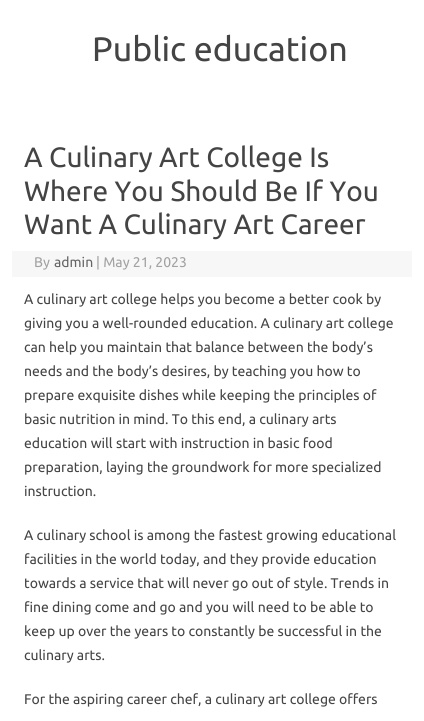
#include <cairo.h>
#include <math.h>
#include <stddef.h>

typedef struct { double x, y; const char *s; } line_t;

static void ink(cairo_t *ctx, unsigned color) {
    cairo_set_source_rgb(ctx, (color >> 16) / 255.0, (color >> 8 & 255) / 255.0, (color & 255) / 255.0);
}

int main(void) {
    cairo_surface_t *surface = cairo_image_surface_create(CAIRO_FORMAT_RGB24, 424, 721);
    cairo_t *ctx = cairo_create(surface);
    cairo_font_options_t *options = cairo_font_options_create();
    cairo_font_options_set_hint_metrics(options, CAIRO_HINT_METRICS_OFF);
    cairo_font_options_set_hint_style(options, CAIRO_HINT_STYLE_NONE);
    cairo_set_font_options(ctx, options);
    cairo_set_miter_limit(ctx, 4);
    ink(ctx, 0xFFFFFF);
    cairo_paint(ctx);
    cairo_select_font_face(ctx, "Ubuntu", CAIRO_FONT_SLANT_NORMAL, CAIRO_FONT_WEIGHT_NORMAL);
    cairo_set_font_size(ctx, 34);
    ink(ctx, 0x444444);
    cairo_move_to(ctx, 92, 61);
    cairo_show_text(ctx, "Public education");
    cairo_set_font_size(ctx, 28);
    {
        static const line_t items[] = {
            {24, 167, "A Culinary Art College Is"},
            {24, 201, "Where You Should Be If You"},
            {24, 234, "Want A Culinary Art Career"},
        };
        for (size_t i = 0; i < sizeof items / sizeof *items; i++) {
            cairo_move_to(ctx, items[i].x, items[i].y);
            cairo_show_text(ctx, items[i].s);
        }
    }
    ink(ctx, 0xF7F7F7);
    cairo_rectangle(ctx, 12, 251, 400, 26);
    cairo_fill(ctx);
    cairo_set_font_size(ctx, 14);
    ink(ctx, 0xA2A2A2);
    cairo_move_to(ctx, 34, 267);
    cairo_show_text(ctx, "By");
    ink(ctx, 0x666666);
    cairo_move_to(ctx, 54, 267);
    cairo_show_text(ctx, "admin");
    ink(ctx, 0xA2A2A2);
    cairo_move_to(ctx, 96, 267);
    cairo_show_text(ctx, "| May 21, 2023");
    ink(ctx, 0x444444);
    {
        static const line_t items[] = {
            {24, 304, "A culinary art college helps you become a better cook by"},
            {24, 328, "giving you a well-rounded education. A culinary art college"},
            {24, 352, "can help you maintain that balance between the body’s"},
            {24, 376, "needs and the body’s desires, by teaching you how to"},
            {24, 400, "prepare exquisite dishes while keeping the principles of"},
            {24, 424, "basic nutrition in mind. To this end, a culinary arts"},
            {24, 448, "education will start with instruction in basic food"},
            {24, 472, "preparation, laying the groundwork for more specialized"},
            {24, 496, "instruction."},
            {24, 540, "A culinary school is among the fastest growing educational"},
            {24, 564, "facilities in the world today, and they provide education"},
            {24, 588, "towards a service that will never go out of style. Trends in"},
            {24, 612, "fine dining come and go and you will need to be able to"},
            {24, 636, "keep up over the years to constantly be successful in the"},
            {24, 660, "culinary arts."},
            {24, 704, "For the aspiring career chef, a culinary art college offers"},
        };
        for (size_t i = 0; i < sizeof items / sizeof *items; i++) {
            cairo_move_to(ctx, items[i].x, items[i].y);
            cairo_show_text(ctx, items[i].s);
        }
    }
    cairo_surface_write_to_png(surface, "image.png");
    cairo_font_options_destroy(options);
    cairo_destroy(ctx);
    cairo_surface_destroy(surface);
    return 0;
}
